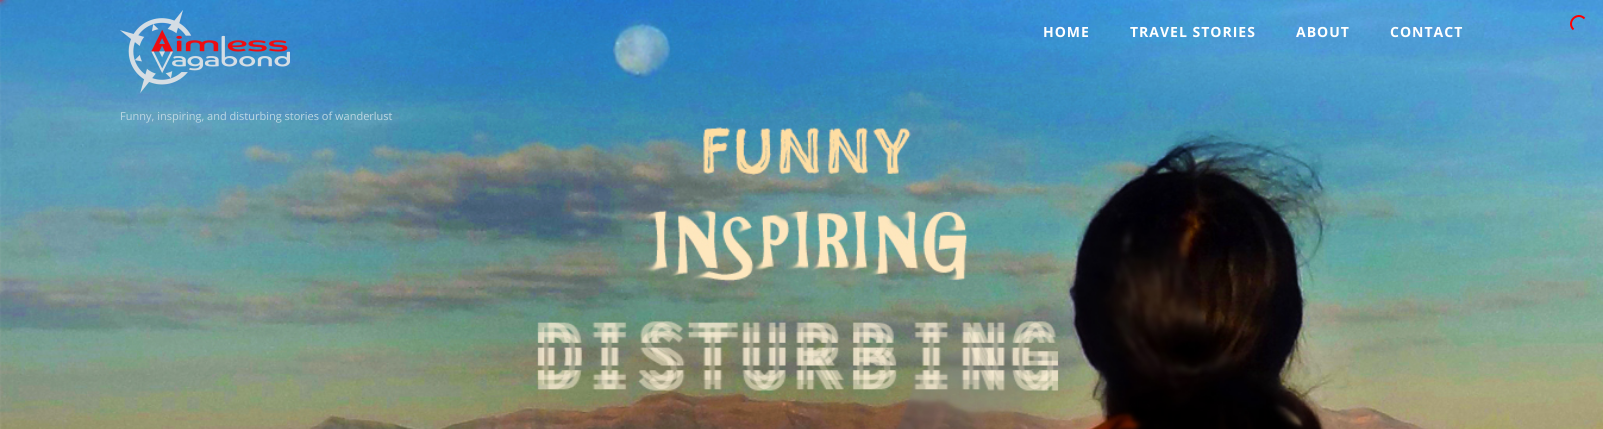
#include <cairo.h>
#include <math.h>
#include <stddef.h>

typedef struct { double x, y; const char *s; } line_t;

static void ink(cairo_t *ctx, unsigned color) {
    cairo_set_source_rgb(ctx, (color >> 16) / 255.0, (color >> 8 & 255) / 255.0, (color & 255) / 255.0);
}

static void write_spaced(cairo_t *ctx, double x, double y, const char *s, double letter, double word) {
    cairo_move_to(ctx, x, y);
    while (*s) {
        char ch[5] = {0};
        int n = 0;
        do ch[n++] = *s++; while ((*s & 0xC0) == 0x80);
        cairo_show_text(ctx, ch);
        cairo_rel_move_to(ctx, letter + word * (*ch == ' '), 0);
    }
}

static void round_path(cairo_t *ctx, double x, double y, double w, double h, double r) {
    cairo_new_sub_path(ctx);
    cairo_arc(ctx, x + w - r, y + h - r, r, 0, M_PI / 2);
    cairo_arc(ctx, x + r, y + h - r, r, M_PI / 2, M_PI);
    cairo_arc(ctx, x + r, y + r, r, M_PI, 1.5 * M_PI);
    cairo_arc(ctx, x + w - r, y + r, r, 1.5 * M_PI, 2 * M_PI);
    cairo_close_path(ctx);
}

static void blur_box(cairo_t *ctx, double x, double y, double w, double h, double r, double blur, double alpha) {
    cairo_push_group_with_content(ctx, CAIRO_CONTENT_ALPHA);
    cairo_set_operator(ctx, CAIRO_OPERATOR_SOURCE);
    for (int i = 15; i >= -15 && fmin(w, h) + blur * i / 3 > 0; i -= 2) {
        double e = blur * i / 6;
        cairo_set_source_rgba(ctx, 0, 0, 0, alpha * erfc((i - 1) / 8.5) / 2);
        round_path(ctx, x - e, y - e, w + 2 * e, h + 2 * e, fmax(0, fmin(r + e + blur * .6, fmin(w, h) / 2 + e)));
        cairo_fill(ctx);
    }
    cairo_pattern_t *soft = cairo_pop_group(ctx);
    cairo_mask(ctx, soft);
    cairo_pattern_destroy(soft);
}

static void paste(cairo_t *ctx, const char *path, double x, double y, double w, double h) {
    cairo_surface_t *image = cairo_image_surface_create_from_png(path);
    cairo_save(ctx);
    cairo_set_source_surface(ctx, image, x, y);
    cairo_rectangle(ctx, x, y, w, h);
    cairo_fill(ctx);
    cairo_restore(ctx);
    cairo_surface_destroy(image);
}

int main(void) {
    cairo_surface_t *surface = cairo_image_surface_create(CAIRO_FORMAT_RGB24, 1603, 429);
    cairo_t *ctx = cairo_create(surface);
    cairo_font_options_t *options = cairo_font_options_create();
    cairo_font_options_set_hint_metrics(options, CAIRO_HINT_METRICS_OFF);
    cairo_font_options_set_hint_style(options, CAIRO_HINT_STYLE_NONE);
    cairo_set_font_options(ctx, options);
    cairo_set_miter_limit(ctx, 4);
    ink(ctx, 0xFFFFFF);
    cairo_paint(ctx);
    paste(ctx, "media/1.png", 0, 0, 1603, 429);
    ink(ctx, 0xFF0000);
    blur_box(ctx, -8, -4, 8, 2, 0, 2.5, 1);
    blur_box(ctx, -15, -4, 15, 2, 0, 5, 1);
    cairo_new_path(ctx);
    cairo_move_to(ctx, 1573.5, 29.5);
    cairo_curve_to(ctx, 1566, 22, 1577, 11, 1584.5, 18.5);
    ink(ctx, 0xFF0000);
    cairo_stroke(ctx);
    cairo_select_font_face(ctx, "Open Sans", CAIRO_FONT_SLANT_NORMAL, CAIRO_FONT_WEIGHT_BOLD);
    cairo_set_font_size(ctx, 14);
    ink(ctx, 0xFFFFFF);
    {
        static const line_t items[] = {
            {1043, 37, "HOME"},
            {1130, 37, "TRAVEL STORIES"},
            {1296, 37, "ABOUT"},
            {1390, 37, "CONTACT"},
        };
        for (size_t i = 0; i < sizeof items / sizeof *items; i++) {
            write_spaced(ctx, items[i].x, items[i].y, items[i].s, 1, 0);
        }
    }
    paste(ctx, "media/2.png", 120, 10, 170, 83);
    cairo_select_font_face(ctx, "Open Sans", CAIRO_FONT_SLANT_NORMAL, CAIRO_FONT_WEIGHT_NORMAL);
    cairo_set_font_size(ctx, 11);
    ink(ctx, 0xBDD8E4);
    cairo_move_to(ctx, 120, 120);
    cairo_show_text(ctx, "Funny, inspiring, and disturbing stories of wanderlust");
    cairo_surface_write_to_png(surface, "image.png");
    cairo_font_options_destroy(options);
    cairo_destroy(ctx);
    cairo_surface_destroy(surface);
    return 0;
}
